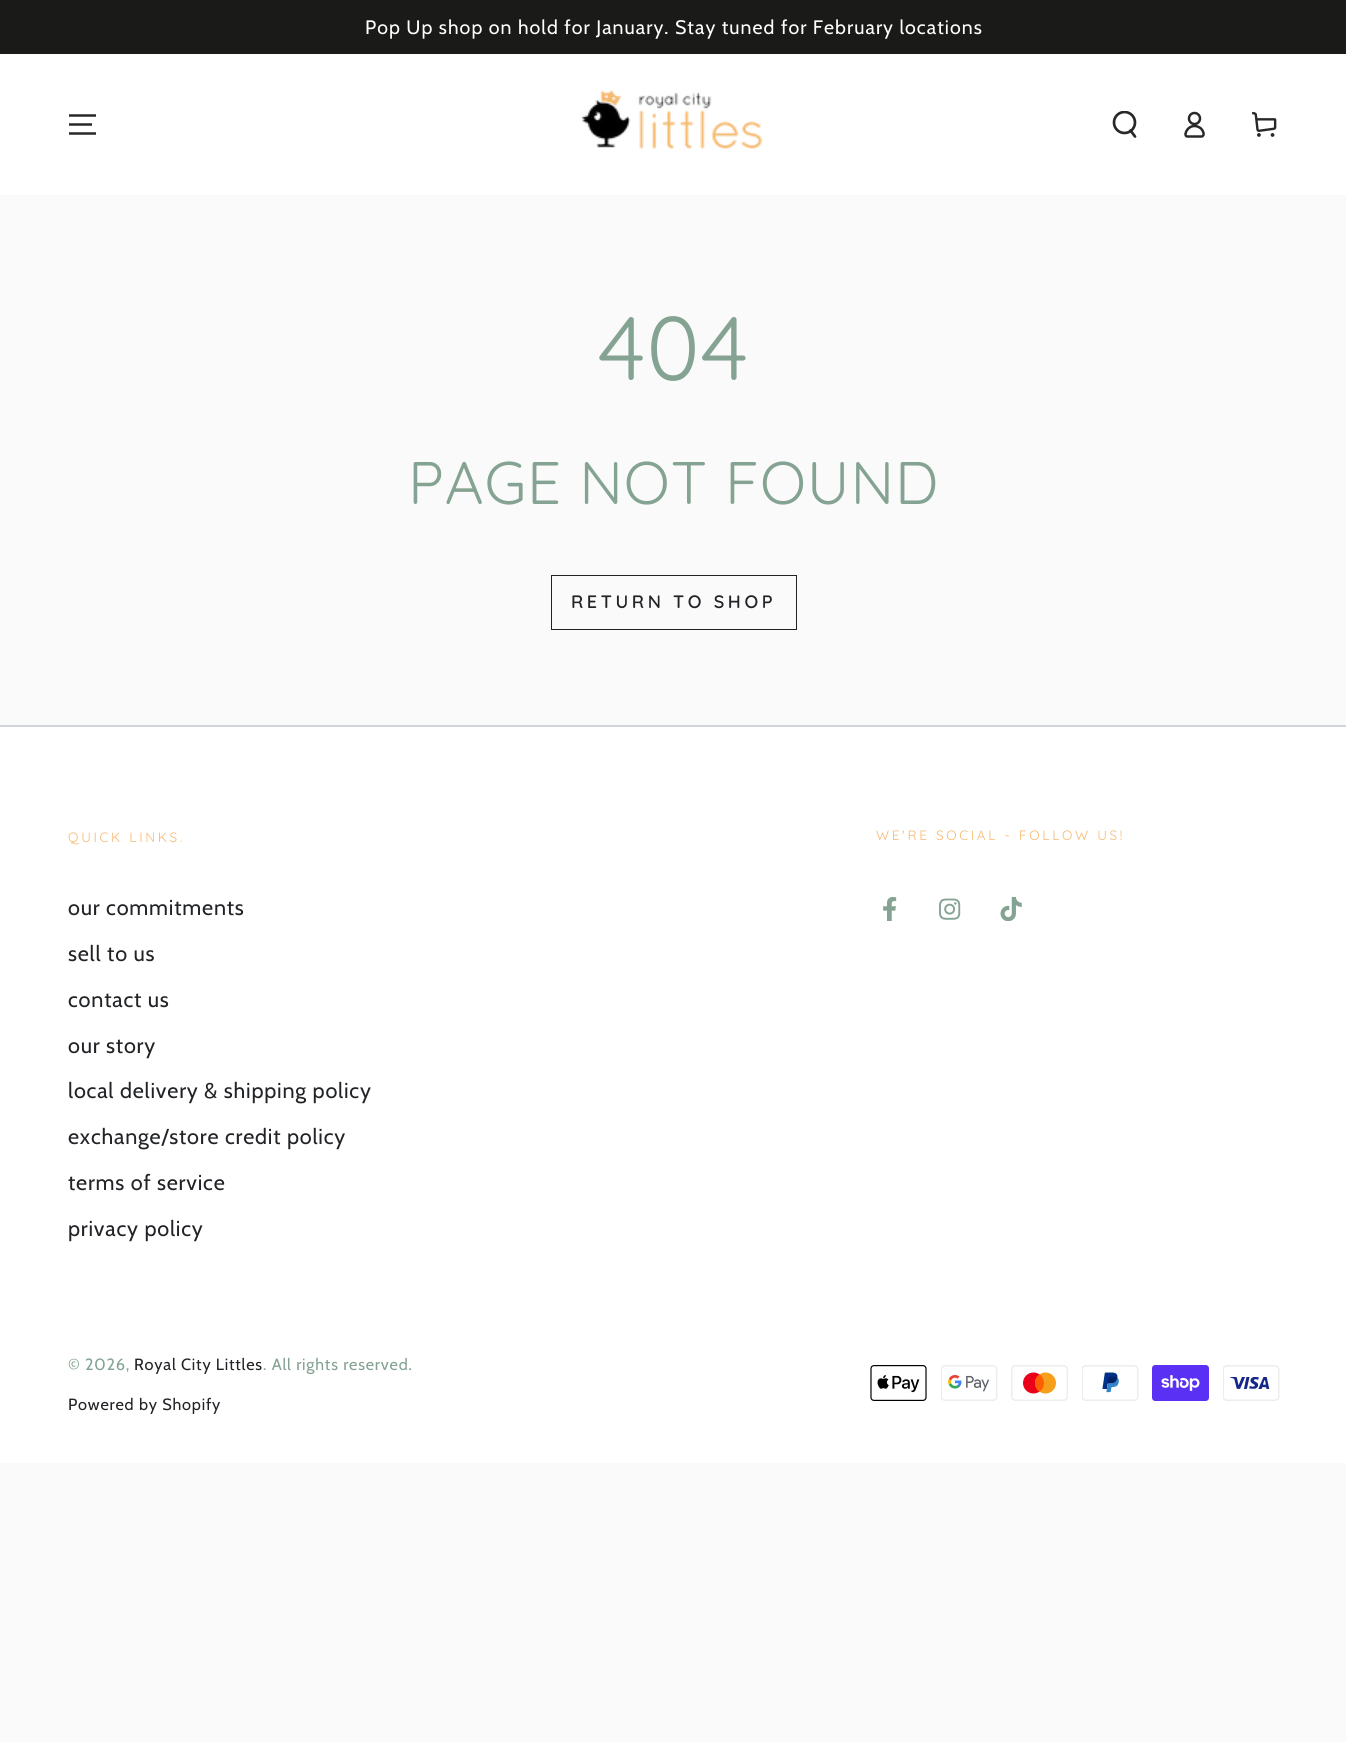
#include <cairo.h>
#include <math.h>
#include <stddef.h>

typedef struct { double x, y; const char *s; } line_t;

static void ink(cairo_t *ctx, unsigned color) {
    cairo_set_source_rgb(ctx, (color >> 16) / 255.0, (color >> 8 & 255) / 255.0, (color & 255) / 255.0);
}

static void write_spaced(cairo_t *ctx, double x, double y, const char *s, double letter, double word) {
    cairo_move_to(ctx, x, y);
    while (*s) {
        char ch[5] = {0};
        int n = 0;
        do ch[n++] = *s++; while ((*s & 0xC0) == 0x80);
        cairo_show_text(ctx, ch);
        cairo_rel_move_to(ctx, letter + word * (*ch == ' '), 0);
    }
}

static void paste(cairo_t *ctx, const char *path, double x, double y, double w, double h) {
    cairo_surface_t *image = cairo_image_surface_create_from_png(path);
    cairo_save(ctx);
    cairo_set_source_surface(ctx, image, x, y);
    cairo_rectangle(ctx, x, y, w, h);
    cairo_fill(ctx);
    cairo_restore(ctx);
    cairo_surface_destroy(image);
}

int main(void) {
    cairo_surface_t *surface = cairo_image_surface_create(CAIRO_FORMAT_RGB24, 1346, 1742);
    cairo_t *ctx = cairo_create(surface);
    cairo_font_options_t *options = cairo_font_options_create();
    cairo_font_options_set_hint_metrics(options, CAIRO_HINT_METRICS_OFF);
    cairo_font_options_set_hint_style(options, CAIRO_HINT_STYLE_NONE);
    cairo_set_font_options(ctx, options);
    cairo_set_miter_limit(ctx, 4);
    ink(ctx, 0xFAFAFA);
    cairo_paint(ctx);
    ink(ctx, 0x1A1B18);
    cairo_rectangle(ctx, 0, 0, 1346, 54);
    cairo_fill(ctx);
    cairo_select_font_face(ctx, "Cabin", CAIRO_FONT_SLANT_NORMAL, CAIRO_FONT_WEIGHT_NORMAL);
    cairo_set_font_size(ctx, 19.5);
    ink(ctx, 0xFFFFFF);
    write_spaced(ctx, 365, 34, "Pop Up shop on hold for January. Stay tuned for February locations", 1.05, 0);
    cairo_rectangle(ctx, 0, 54, 1346, 141);
    cairo_fill(ctx);
    cairo_new_path(ctx);
    cairo_move_to(ctx, 69, 133.5);
    cairo_line_to(ctx, 96, 133.5);
    cairo_move_to(ctx, 69, 124.5);
    cairo_line_to(ctx, 92, 124.5);
    cairo_move_to(ctx, 69, 115.5);
    cairo_line_to(ctx, 96, 115.5);
    ink(ctx, 0x282828);
    cairo_set_line_width(ctx, 2.5);
    cairo_stroke(ctx);
    paste(ctx, "media/1.png", 581, 89, 182, 60);
    cairo_save(ctx);
    cairo_rectangle(ctx, 1112, 111, 27, 27);
    cairo_clip(ctx);
    cairo_arc(ctx, 1124.5, 122.5, 10.5, 0, 2 * M_PI);
    cairo_set_line_width(ctx, 2.7);
    cairo_stroke(ctx);
    cairo_restore(ctx);
    cairo_new_path(ctx);
    cairo_move_to(ctx, 1130.5, 130.5);
    cairo_line_to(ctx, 1135, 136.5);
    cairo_set_line_width(ctx, 2.7);
    cairo_set_line_cap(ctx, CAIRO_LINE_CAP_ROUND);
    cairo_stroke(ctx);
    cairo_new_path(ctx);
    cairo_move_to(ctx, 1194.5, 126);
    cairo_curve_to(ctx, 1186.5, 126, 1183, 136.5, 1187.5, 136.5);
    cairo_line_to(ctx, 1202, 136.5);
    cairo_curve_to(ctx, 1205.5, 135, 1202.5, 130, 1201, 128.5);
    cairo_curve_to(ctx, 1199, 127, 1197, 126, 1194.5, 126);
    cairo_close_path(ctx);
    cairo_set_line_width(ctx, 2.5);
    cairo_set_line_cap(ctx, CAIRO_LINE_CAP_BUTT);
    cairo_stroke(ctx);
    cairo_arc(ctx, 1194.5, 118.5, 5.5, 0, 2 * M_PI);
    cairo_stroke(ctx);
    paste(ctx, "media/2.png", 1252, 111, 25, 26);
    cairo_select_font_face(ctx, "Quicksand", CAIRO_FONT_SLANT_NORMAL, CAIRO_FONT_WEIGHT_NORMAL);
    cairo_set_font_size(ctx, 90);
    ink(ctx, 0x85A392);
    write_spaced(ctx, 598, 380, "404", 0.9, 0);
    cairo_set_font_size(ctx, 60);
    write_spaced(ctx, 408, 504, "PAGE NOT FOUND", 0.9, 0);
    cairo_rectangle(ctx, 551.5, 575.5, 245, 54);
    ink(ctx, 0x212326);
    cairo_set_line_width(ctx, 1);
    cairo_stroke(ctx);
    cairo_select_font_face(ctx, "Quicksand SemiBold", CAIRO_FONT_SLANT_NORMAL, CAIRO_FONT_WEIGHT_NORMAL);
    cairo_set_font_size(ctx, 18);
    write_spaced(ctx, 571, 608, "RETURN TO SHOP", 3.6, 0);
    ink(ctx, 0xFFFFFF);
    cairo_rectangle(ctx, 0, 727, 1346, 736);
    cairo_fill(ctx);
    ink(ctx, 0xD2D5D9);
    cairo_rectangle(ctx, 0, 725, 1346, 2);
    cairo_fill(ctx);
    cairo_select_font_face(ctx, "Quicksand", CAIRO_FONT_SLANT_NORMAL, CAIRO_FONT_WEIGHT_NORMAL);
    cairo_set_font_size(ctx, 13.5);
    ink(ctx, 0xF5B971);
    write_spaced(ctx, 68, 842, "QUICK LINKS.", 2.7, 0);
    cairo_select_font_face(ctx, "Cabin", CAIRO_FONT_SLANT_NORMAL, CAIRO_FONT_WEIGHT_NORMAL);
    cairo_set_font_size(ctx, 21.6);
    ink(ctx, 0x212326);
    {
        static const line_t items[] = {
            {68, 915, "our commitments"},
            {68, 961, "sell to us"},
            {68, 1007, "contact us"},
            {68, 1053, "our story"},
            {68, 1098, "local delivery & shipping policy"},
            {68, 1144, "exchange/store credit policy"},
            {68, 1190, "terms of service"},
            {68, 1236, "privacy policy"},
        };
        for (size_t i = 0; i < sizeof items / sizeof *items; i++) {
            write_spaced(ctx, items[i].x, items[i].y, items[i].s, 0.8, 0);
        }
    }
    cairo_select_font_face(ctx, "Quicksand", CAIRO_FONT_SLANT_NORMAL, CAIRO_FONT_WEIGHT_NORMAL);
    cairo_set_font_size(ctx, 13.5);
    ink(ctx, 0xF5B971);
    write_spaced(ctx, 876, 840, "WE'RE SOCIAL - FOLLOW US!", 2.7, 0);
    paste(ctx, "media/3.png", 883, 897, 14, 24);
    paste(ctx, "media/4.png", 939, 898, 22, 22);
    paste(ctx, "media/5.png", 1000, 897, 22, 24);
    cairo_select_font_face(ctx, "Cabin", CAIRO_FONT_SLANT_NORMAL, CAIRO_FONT_WEIGHT_NORMAL);
    cairo_set_font_size(ctx, 16.25);
    ink(ctx, 0x85A392);
    write_spaced(ctx, 68, 1370, "© 2026,", 0.8, 0);
    ink(ctx, 0x212326);
    write_spaced(ctx, 134, 1370, "Royal City Littles", 0.8, 0);
    ink(ctx, 0x85A392);
    write_spaced(ctx, 263, 1370, ". All rights reserved.", 0.8, 0);
    ink(ctx, 0x212326);
    write_spaced(ctx, 68, 1410, "Powered by Shopify", 0.8, 0);
    paste(ctx, "media/6.png", 870, 1365, 57, 36);
    paste(ctx, "media/7.png", 941, 1365, 57, 36);
    paste(ctx, "media/8.png", 1011, 1365, 57, 36);
    paste(ctx, "media/9.png", 1082, 1365, 57, 36);
    paste(ctx, "media/10.png", 1152, 1365, 57, 36);
    paste(ctx, "media/11.png", 1223, 1365, 57, 36);
    cairo_surface_write_to_png(surface, "image.png");
    cairo_font_options_destroy(options);
    cairo_destroy(ctx);
    cairo_surface_destroy(surface);
    return 0;
}
